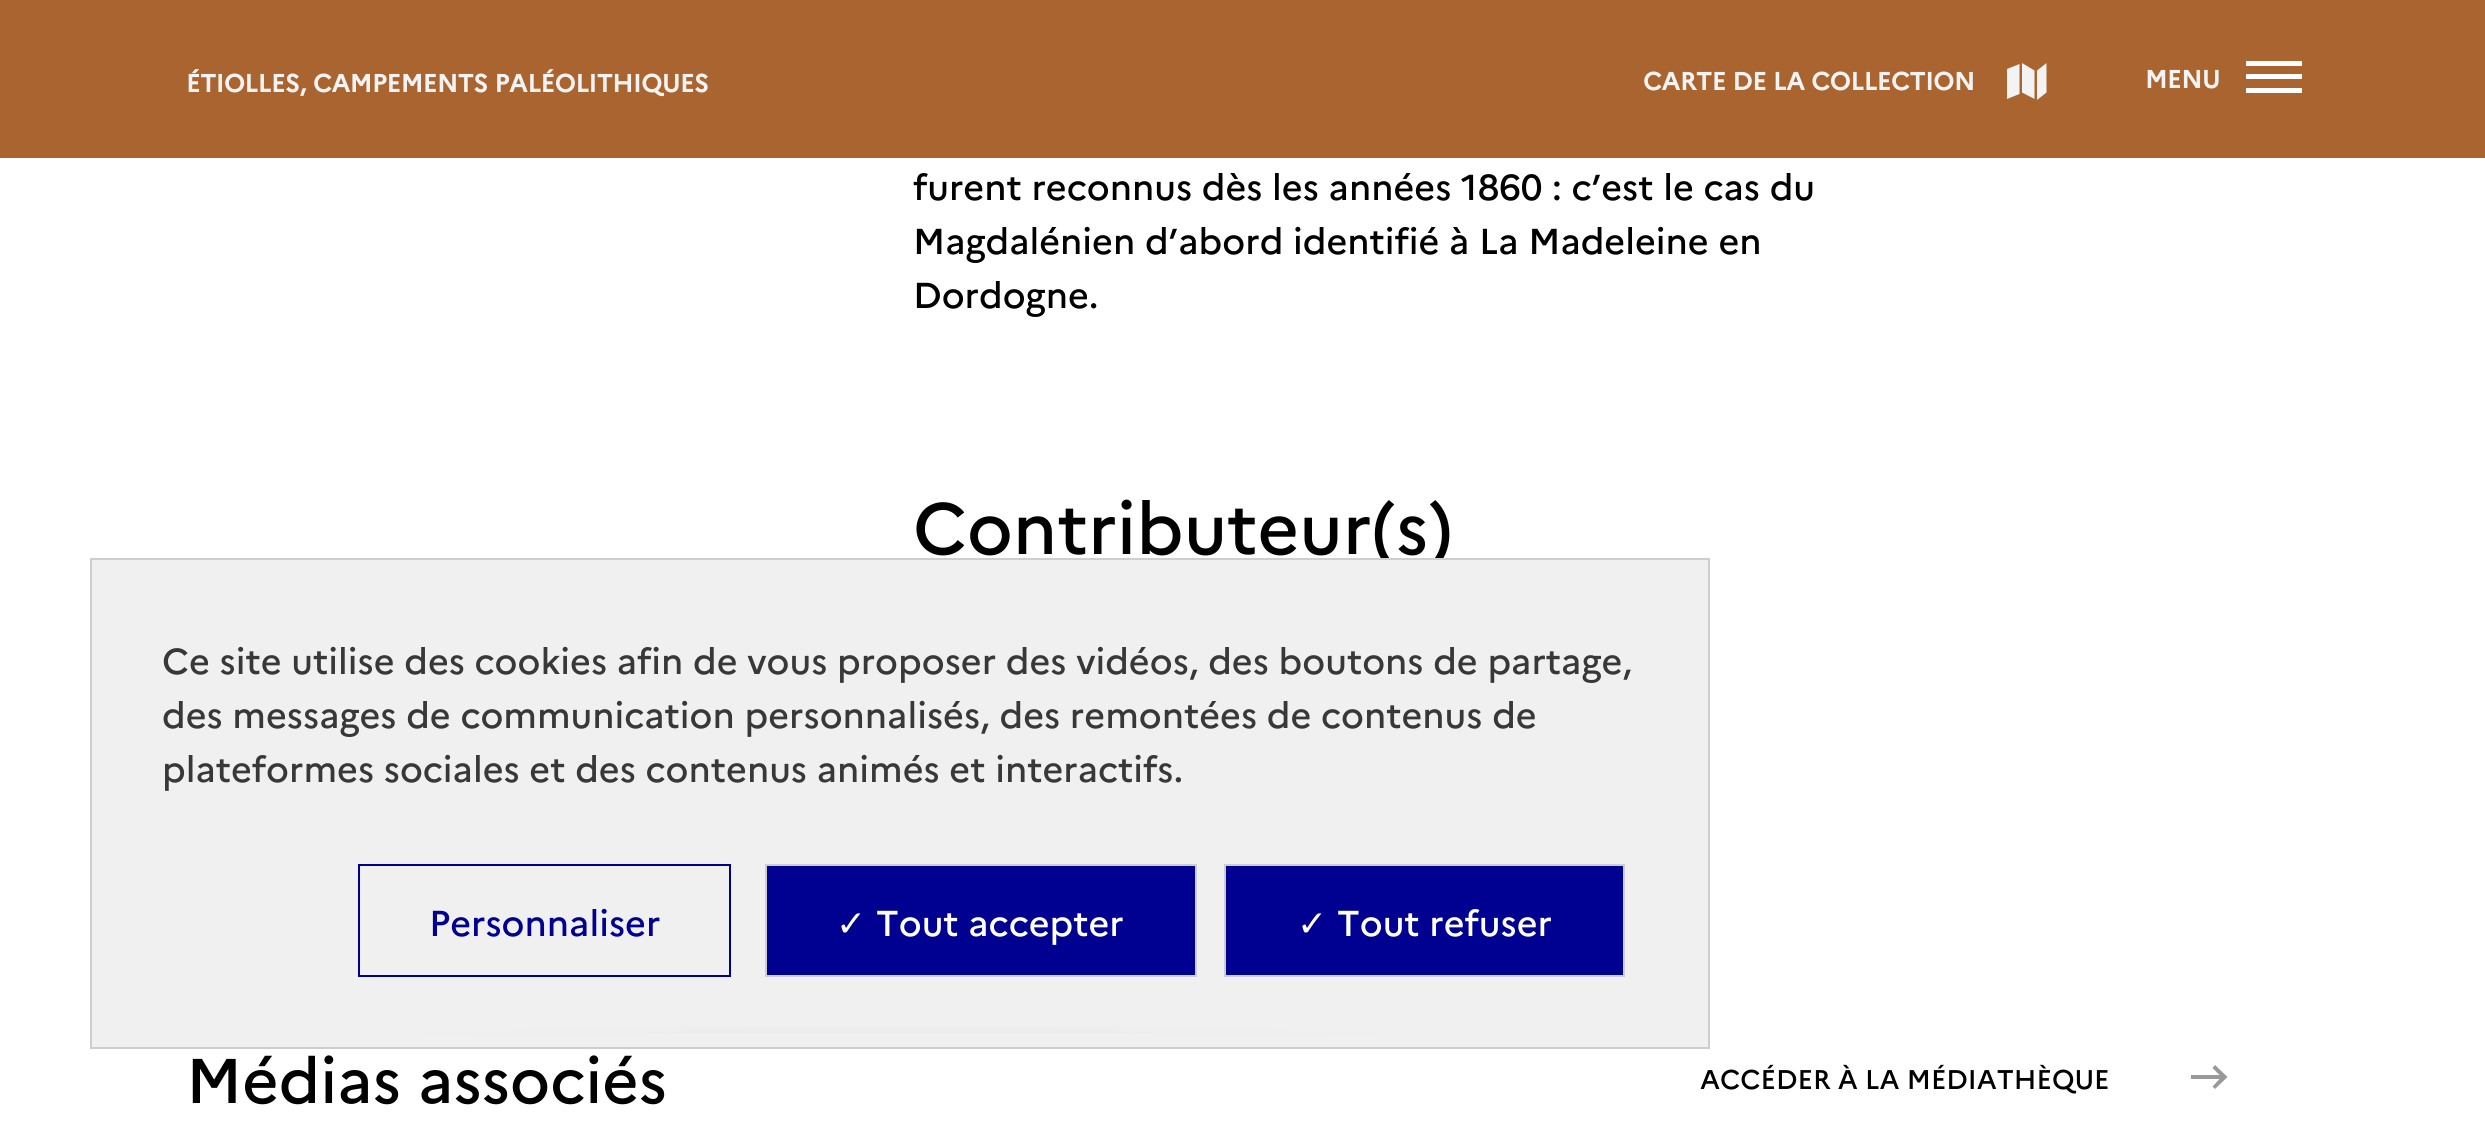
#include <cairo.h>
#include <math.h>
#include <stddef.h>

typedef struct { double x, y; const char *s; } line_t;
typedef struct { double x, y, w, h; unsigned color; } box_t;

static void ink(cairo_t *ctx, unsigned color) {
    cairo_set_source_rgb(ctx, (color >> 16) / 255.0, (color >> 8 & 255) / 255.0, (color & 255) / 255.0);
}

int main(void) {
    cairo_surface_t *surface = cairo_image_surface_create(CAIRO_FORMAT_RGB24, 2485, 1138);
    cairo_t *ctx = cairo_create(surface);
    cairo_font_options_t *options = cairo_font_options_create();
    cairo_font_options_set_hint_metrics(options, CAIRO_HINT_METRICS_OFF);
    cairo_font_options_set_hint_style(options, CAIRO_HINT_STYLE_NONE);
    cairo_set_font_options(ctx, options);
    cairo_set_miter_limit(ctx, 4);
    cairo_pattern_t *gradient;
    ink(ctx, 0xFFFFFF);
    cairo_paint(ctx);
    ink(ctx, 0xA9642F);
    cairo_rectangle(ctx, 0, 0, 2485, 158);
    cairo_fill(ctx);
    cairo_select_font_face(ctx, "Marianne", CAIRO_FONT_SLANT_NORMAL, CAIRO_FONT_WEIGHT_BOLD);
    cairo_set_font_size(ctx, 24.75);
    ink(ctx, 0xF3F3F3);
    cairo_move_to(ctx, 186, 92);
    cairo_show_text(ctx, "ÉTIOLLES, CAMPEMENTS PALÉOLITHIQUES");
    cairo_move_to(ctx, 1643, 90);
    cairo_show_text(ctx, "CARTE DE LA COLLECTION");
    cairo_new_path(ctx);
    cairo_move_to(ctx, 2037, 100);
    cairo_line_to(ctx, 2037, 70.5);
    cairo_line_to(ctx, 2046.5, 63);
    cairo_line_to(ctx, 2046.5, 92.5);
    cairo_close_path(ctx);
    cairo_move_to(ctx, 2022, 63);
    cairo_line_to(ctx, 2034.5, 70.5);
    cairo_line_to(ctx, 2034.5, 99);
    cairo_line_to(ctx, 2022, 92.5);
    cairo_close_path(ctx);
    cairo_move_to(ctx, 2007, 69);
    cairo_line_to(ctx, 2019.5, 64);
    cairo_line_to(ctx, 2019.5, 94);
    cairo_line_to(ctx, 2007, 99);
    cairo_close_path(ctx);
    cairo_fill(ctx);
    cairo_move_to(ctx, 2145, 88);
    cairo_show_text(ctx, "MENU");
    {
        static const box_t items[] = {
            {2246, 74, 56, 5, 0xFFFFFF},
            {2246, 61, 56, 5, 0xFFFFFF},
            {2246, 88, 56, 5, 0xFFFFFF},
        };
        for (size_t i = 0; i < sizeof items / sizeof *items; i++) {
            ink(ctx, items[i].color);
            cairo_rectangle(ctx, items[i].x, items[i].y, items[i].w, items[i].h);
            cairo_fill(ctx);
        }
    }
    cairo_select_font_face(ctx, "Marianne Medium", CAIRO_FONT_SLANT_NORMAL, CAIRO_FONT_WEIGHT_NORMAL);
    cairo_set_font_size(ctx, 36);
    ink(ctx, 0x000000);
    {
        static const line_t items[] = {
            {913, 200, "furent reconnus dès les années 1860 : c’est le cas du"},
            {913, 254, "Magdalénien d’abord identifié à La Madeleine en"},
            {913, 308, "Dordogne."},
        };
        for (size_t i = 0; i < sizeof items / sizeof *items; i++) {
            cairo_move_to(ctx, items[i].x, items[i].y);
            cairo_show_text(ctx, items[i].s);
        }
    }
    cairo_set_font_size(ctx, 72);
    cairo_move_to(ctx, 913, 554);
    cairo_show_text(ctx, "Contributeur(s)");
    cairo_set_font_size(ctx, 63);
    cairo_move_to(ctx, 186, 1103);
    cairo_show_text(ctx, "Médias associés");
    cairo_set_font_size(ctx, 27);
    cairo_move_to(ctx, 1700, 1089);
    cairo_show_text(ctx, "ACCÉDER À LA MÉDIATHÈQUE");
    ink(ctx, 0x999999);
    cairo_new_path(ctx);
    cairo_move_to(ctx, 2191, 1075);
    cairo_line_to(ctx, 2219.5, 1075);
    cairo_line_to(ctx, 2212.5, 1068);
    cairo_line_to(ctx, 2215, 1065);
    cairo_line_to(ctx, 2227.5, 1077);
    cairo_line_to(ctx, 2215, 1089);
    cairo_line_to(ctx, 2212.5, 1086.5);
    cairo_line_to(ctx, 2219.5, 1079);
    cairo_line_to(ctx, 2191, 1079);
    cairo_close_path(ctx);
    cairo_fill(ctx);
    ink(ctx, 0xF0F0F0);
    cairo_rectangle(ctx, 92, 572, 1616, 454);
    cairo_fill(ctx);
    gradient = cairo_pattern_create_radial(0, 0, 0, 0, 0, 1);
    cairo_pattern_set_matrix(gradient, &(cairo_matrix_t){1.0 / 810, 0, 0, 1.0 / 23, -1.0 * 900 / 810, -1.0 * 1049 / 23});
    cairo_pattern_add_color_stop_rgba(gradient, 0, 0.537, 0.537, 0.537, 1);
    cairo_pattern_add_color_stop_rgba(gradient, 1, 0.941, 0.941, 0.941, 1);
    cairo_set_source(ctx, gradient);
    cairo_pattern_destroy(gradient);
    cairo_rectangle(ctx, 92, 1026, 1616, 9);
    cairo_fill(ctx);
    gradient = cairo_pattern_create_linear(900, 1008, 900, 1049);
    cairo_pattern_add_color_stop_rgba(gradient, 0, 0.941, 0.941, 0.941, 0);
    cairo_pattern_add_color_stop_rgba(gradient, 0.66, 0.941, 0.941, 0.941, 1);
    cairo_set_source(ctx, gradient);
    cairo_pattern_destroy(gradient);
    cairo_rectangle(ctx, 92, 1027, 1616, 20);
    cairo_fill(ctx);
    gradient = cairo_pattern_create_linear(900, 558, 900, 599);
    cairo_pattern_add_color_stop_rgba(gradient, 0.33, 0.941, 0.941, 0.941, 1);
    cairo_pattern_add_color_stop_rgba(gradient, 1, 0.941, 0.941, 0.941, 0);
    cairo_set_source(ctx, gradient);
    cairo_pattern_destroy(gradient);
    cairo_rectangle(ctx, 92, 560, 1616, 12);
    cairo_fill(ctx);
    cairo_rectangle(ctx, 91, 559, 1618, 489);
    ink(ctx, 0xCECECE);
    cairo_stroke(ctx);
    cairo_set_font_size(ctx, 36);
    ink(ctx, 0x383838);
    {
        static const line_t items[] = {
            {162, 674, "Ce site utilise des cookies afin de vous proposer des vidéos, des boutons de partage,"},
            {162, 728, "des messages de communication personnalisés, des remontées de contenus de"},
            {162, 782, "plateformes sociales et des contenus animés et interactifs."},
        };
        for (size_t i = 0; i < sizeof items / sizeof *items; i++) {
            cairo_move_to(ctx, items[i].x, items[i].y);
            cairo_show_text(ctx, items[i].s);
        }
    }
    cairo_rectangle(ctx, 359, 865, 371, 111);
    ink(ctx, 0x000091);
    cairo_stroke(ctx);
    cairo_move_to(ctx, 429, 936);
    cairo_show_text(ctx, "Personnaliser");
    cairo_rectangle(ctx, 766, 865, 430, 111);
    cairo_fill_preserve(ctx);
    ink(ctx, 0xCECECE);
    cairo_stroke(ctx);
    cairo_select_font_face(ctx, "DejaVu Sans", CAIRO_FONT_SLANT_NORMAL, CAIRO_FONT_WEIGHT_NORMAL);
    ink(ctx, 0xFFFFFF);
    cairo_move_to(ctx, 836, 936);
    cairo_show_text(ctx, "✓");
    cairo_select_font_face(ctx, "Marianne Medium", CAIRO_FONT_SLANT_NORMAL, CAIRO_FONT_WEIGHT_NORMAL);
    cairo_move_to(ctx, 876, 936);
    cairo_show_text(ctx, "Tout accepter");
    ink(ctx, 0x000091);
    cairo_rectangle(ctx, 1225, 865, 399, 111);
    cairo_fill_preserve(ctx);
    ink(ctx, 0xCECECE);
    cairo_stroke(ctx);
    cairo_select_font_face(ctx, "DejaVu Sans", CAIRO_FONT_SLANT_NORMAL, CAIRO_FONT_WEIGHT_NORMAL);
    ink(ctx, 0xFFFFFF);
    cairo_move_to(ctx, 1297, 936);
    cairo_show_text(ctx, "✓");
    cairo_select_font_face(ctx, "Marianne Medium", CAIRO_FONT_SLANT_NORMAL, CAIRO_FONT_WEIGHT_NORMAL);
    cairo_move_to(ctx, 1337, 936);
    cairo_show_text(ctx, "Tout refuser");
    cairo_surface_write_to_png(surface, "image.png");
    cairo_font_options_destroy(options);
    cairo_destroy(ctx);
    cairo_surface_destroy(surface);
    return 0;
}
